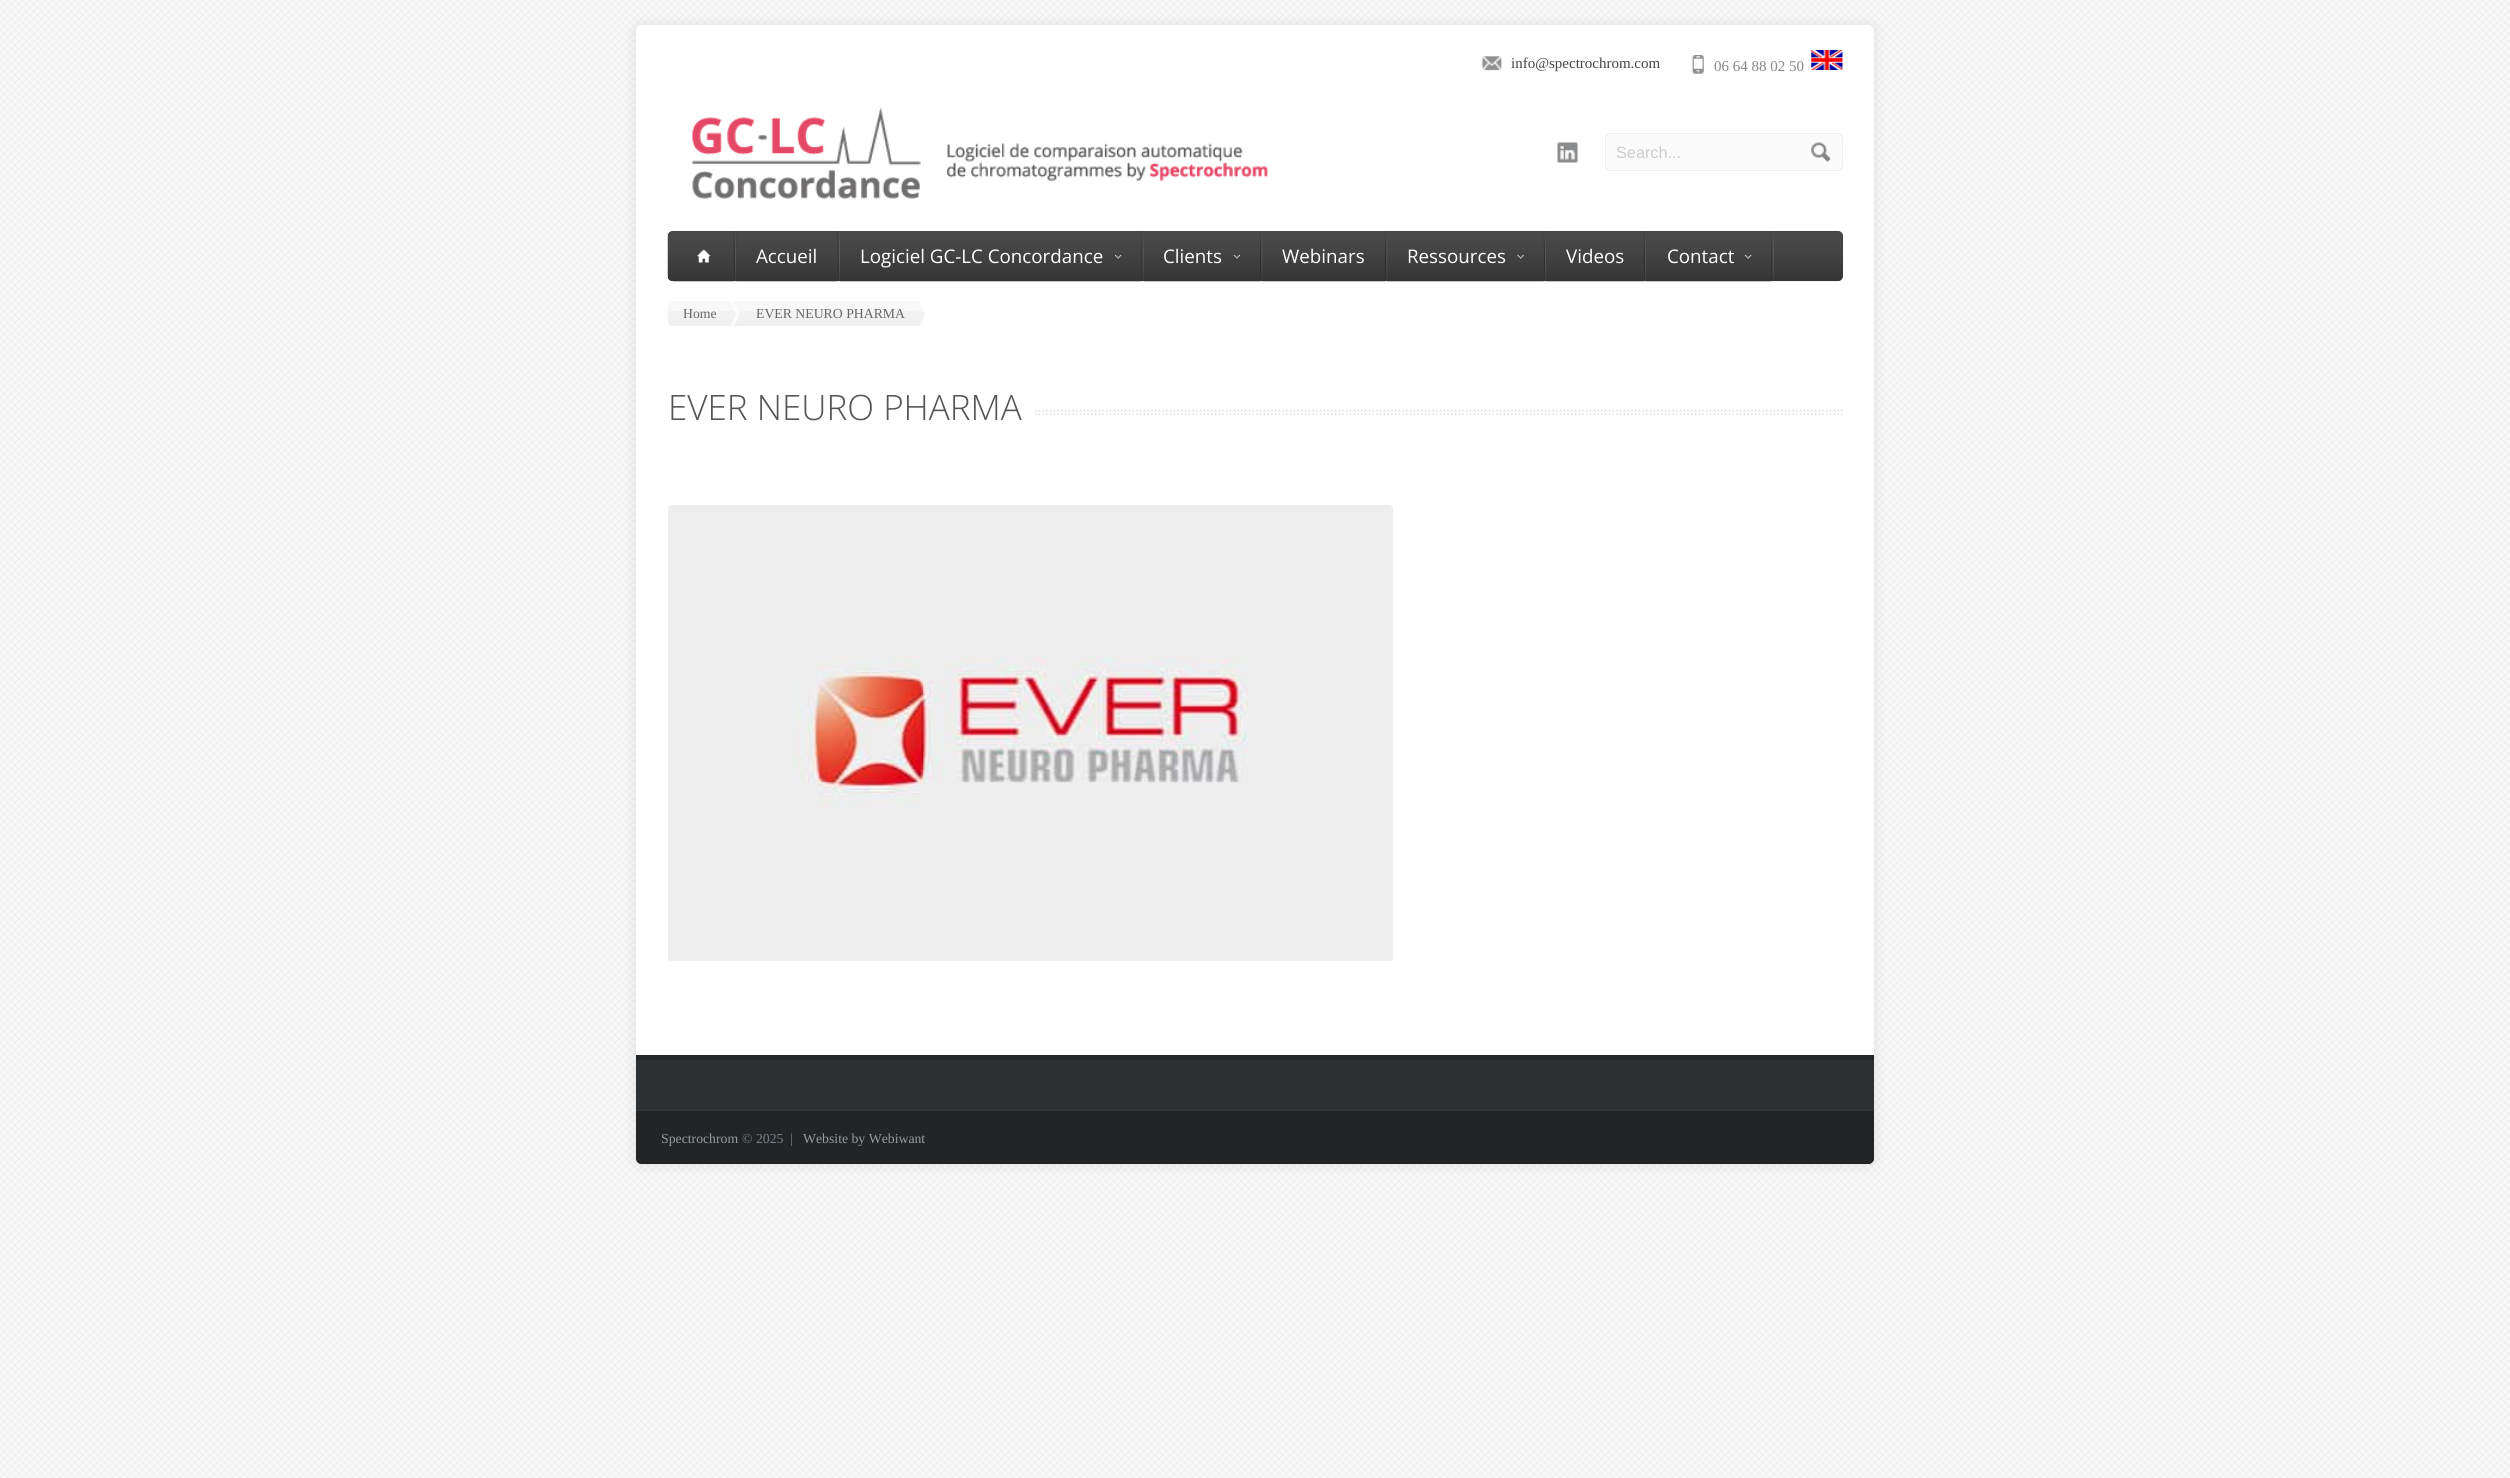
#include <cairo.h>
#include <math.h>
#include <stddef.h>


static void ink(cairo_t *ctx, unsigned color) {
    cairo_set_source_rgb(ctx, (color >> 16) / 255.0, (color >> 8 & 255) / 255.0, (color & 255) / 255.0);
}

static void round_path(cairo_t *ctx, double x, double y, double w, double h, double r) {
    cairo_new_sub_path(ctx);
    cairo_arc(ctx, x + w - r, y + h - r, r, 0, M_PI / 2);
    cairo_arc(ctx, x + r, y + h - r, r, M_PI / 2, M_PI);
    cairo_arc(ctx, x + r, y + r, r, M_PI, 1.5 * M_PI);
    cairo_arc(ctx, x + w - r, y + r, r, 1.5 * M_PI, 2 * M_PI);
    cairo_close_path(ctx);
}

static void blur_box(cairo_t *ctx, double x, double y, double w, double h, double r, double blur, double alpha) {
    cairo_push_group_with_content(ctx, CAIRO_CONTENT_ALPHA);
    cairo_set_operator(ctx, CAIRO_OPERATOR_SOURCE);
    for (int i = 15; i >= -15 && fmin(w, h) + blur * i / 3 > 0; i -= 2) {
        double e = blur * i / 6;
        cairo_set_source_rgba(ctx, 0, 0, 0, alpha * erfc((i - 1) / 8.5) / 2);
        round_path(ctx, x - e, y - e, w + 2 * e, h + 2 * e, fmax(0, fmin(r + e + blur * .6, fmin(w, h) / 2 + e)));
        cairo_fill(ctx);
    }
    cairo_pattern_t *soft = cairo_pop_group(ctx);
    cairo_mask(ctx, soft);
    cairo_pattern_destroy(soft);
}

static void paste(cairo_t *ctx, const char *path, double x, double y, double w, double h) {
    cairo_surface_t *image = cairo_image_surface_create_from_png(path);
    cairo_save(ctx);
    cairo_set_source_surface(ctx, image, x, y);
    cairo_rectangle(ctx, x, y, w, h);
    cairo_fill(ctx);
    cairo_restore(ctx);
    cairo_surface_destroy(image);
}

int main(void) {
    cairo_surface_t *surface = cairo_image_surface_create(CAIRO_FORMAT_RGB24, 2510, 1478);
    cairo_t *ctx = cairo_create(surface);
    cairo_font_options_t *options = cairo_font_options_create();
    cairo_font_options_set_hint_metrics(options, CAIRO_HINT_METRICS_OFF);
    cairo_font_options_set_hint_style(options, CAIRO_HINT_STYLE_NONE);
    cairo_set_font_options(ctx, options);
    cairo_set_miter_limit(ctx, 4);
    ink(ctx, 0xFFFFFF);
    cairo_paint(ctx);
    paste(ctx, "media/1.png", 0, 0, 2510, 1478);
    ink(ctx, 0x000000);
    blur_box(ctx, 636, 25, 1238, 1139, 6, 6, 0.1);
    ink(ctx, 0xFFFFFF);
    round_path(ctx, 636, 25, 1238, 1139, 6);
    cairo_fill(ctx);
    paste(ctx, "media/2.png", 692, 107, 576, 92);
    paste(ctx, "media/3.png", 1482, 56, 20, 15);
    cairo_select_font_face(ctx, "Liberation Serif", CAIRO_FONT_SLANT_NORMAL, CAIRO_FONT_WEIGHT_NORMAL);
    cairo_set_font_size(ctx, 15);
    ink(ctx, 0x444444);
    cairo_move_to(ctx, 1511, 68);
    cairo_show_text(ctx, "info@spectrochrom.com");
    paste(ctx, "media/4.png", 1692, 55, 12, 19);
    ink(ctx, 0x888888);
    cairo_move_to(ctx, 1714, 71);
    cairo_show_text(ctx, "06 64 88 02 50");
    paste(ctx, "media/5.png", 1811, 50, 32, 20);
    paste(ctx, "media/6.png", 1557, 142, 21, 21);
    ink(ctx, 0xFBFBFB);
    round_path(ctx, 1605.5, 133.5, 237, 37, 4.5);
    cairo_fill_preserve(ctx);
    ink(ctx, 0xEEEEEE);
    cairo_set_line_width(ctx, 1);
    cairo_stroke(ctx);
    cairo_select_font_face(ctx, "Liberation Sans", CAIRO_FONT_SLANT_NORMAL, CAIRO_FONT_WEIGHT_NORMAL);
    cairo_set_font_size(ctx, 16.25);
    ink(ctx, 0xCCCCCC);
    cairo_move_to(ctx, 1616, 158);
    cairo_show_text(ctx, "Search...");
    paste(ctx, "media/7.png", 1811, 142, 20, 20);
    ink(ctx, 0x393B3C);
    round_path(ctx, 668, 231, 1175, 50, 5);
    cairo_fill(ctx);
    paste(ctx, "media/8.png", 667, 231, 1176, 51);
    paste(ctx, "media/9.png", 734, 234, 2, 46);
    cairo_rectangle(ctx, 674, 231, 60, 50);
    cairo_fill(ctx);
    paste(ctx, "media/10.png", 673, 231, 61, 51);
    paste(ctx, "media/11.png", 697, 249, 14, 14);
    paste(ctx, "media/12.png", 838, 234, 2, 46);
    cairo_rectangle(ctx, 736, 231, 102, 50);
    cairo_fill(ctx);
    paste(ctx, "media/13.png", 736, 231, 102, 51);
    cairo_select_font_face(ctx, "Open Sans", CAIRO_FONT_SLANT_NORMAL, CAIRO_FONT_WEIGHT_NORMAL);
    cairo_set_font_size(ctx, 18.75);
    ink(ctx, 0xFFFFFF);
    cairo_move_to(ctx, 756, 263);
    cairo_show_text(ctx, "Accueil");
    paste(ctx, "media/14.png", 1141, 234, 3, 46);
    paste(ctx, "media/15.png", 840, 231, 302, 51);
    cairo_move_to(ctx, 860, 263);
    cairo_show_text(ctx, "Logiciel GC-LC Concordance");
    paste(ctx, "media/16.png", 1115, 254, 7, 6);
    paste(ctx, "media/17.png", 1260, 234, 3, 46);
    paste(ctx, "media/18.png", 1143, 231, 117, 51);
    cairo_move_to(ctx, 1163, 263);
    cairo_show_text(ctx, "Clients");
    paste(ctx, "media/19.png", 1233, 254, 7, 6);
    paste(ctx, "media/17.png", 1385, 234, 3, 46);
    paste(ctx, "media/20.png", 1262, 231, 123, 51);
    cairo_move_to(ctx, 1282, 263);
    cairo_show_text(ctx, "Webinars");
    paste(ctx, "media/9.png", 1544, 234, 2, 46);
    ink(ctx, 0x393B3C);
    cairo_rectangle(ctx, 1388, 231, 156, 50);
    cairo_fill(ctx);
    paste(ctx, "media/21.png", 1387, 231, 157, 51);
    ink(ctx, 0xFFFFFF);
    cairo_move_to(ctx, 1407, 263);
    cairo_show_text(ctx, "Ressources");
    paste(ctx, "media/22.png", 1517, 254, 7, 6);
    paste(ctx, "media/9.png", 1644, 234, 2, 46);
    ink(ctx, 0x393B3C);
    cairo_rectangle(ctx, 1546, 231, 98, 50);
    cairo_fill(ctx);
    paste(ctx, "media/23.png", 1546, 231, 98, 51);
    ink(ctx, 0xFFFFFF);
    cairo_move_to(ctx, 1566, 263);
    cairo_show_text(ctx, "Videos");
    paste(ctx, "media/14.png", 1771, 234, 3, 46);
    ink(ctx, 0x393B3C);
    cairo_rectangle(ctx, 1646, 231, 125, 50);
    cairo_fill(ctx);
    paste(ctx, "media/24.png", 1646, 231, 126, 51);
    ink(ctx, 0xFFFFFF);
    cairo_move_to(ctx, 1667, 263);
    cairo_show_text(ctx, "Contact");
    paste(ctx, "media/16.png", 1745, 254, 7, 6);
    ink(ctx, 0xF8F8F8);
    cairo_new_path(ctx);
    cairo_move_to(ctx, 673, 301);
    cairo_line_to(ctx, 741, 301);
    cairo_line_to(ctx, 741, 326);
    cairo_line_to(ctx, 673, 326);
    cairo_curve_to(ctx, 670, 326, 668, 324, 668, 321);
    cairo_line_to(ctx, 668, 306);
    cairo_curve_to(ctx, 668, 303, 670, 301, 673, 301);
    cairo_close_path(ctx);
    cairo_fill(ctx);
    paste(ctx, "media/25.png", 668, 311, 73, 15);
    paste(ctx, "media/26.png", 730, 301, 10, 25);
    cairo_select_font_face(ctx, "Liberation Serif", CAIRO_FONT_SLANT_NORMAL, CAIRO_FONT_WEIGHT_NORMAL);
    cairo_set_font_size(ctx, 13.75);
    ink(ctx, 0x666666);
    cairo_move_to(ctx, 683, 318);
    cairo_show_text(ctx, "Home");
    ink(ctx, 0xF8F8F8);
    cairo_rectangle(ctx, 741, 301, 189, 25);
    cairo_fill(ctx);
    paste(ctx, "media/27.png", 741, 311, 187, 15);
    paste(ctx, "media/28.png", 919, 301, 11, 25);
    ink(ctx, 0x666666);
    cairo_move_to(ctx, 756, 318);
    cairo_show_text(ctx, "EVER NEURO PHARMA");
    paste(ctx, "media/29.png", 667, 409, 1176, 7);
    ink(ctx, 0xFFFFFF);
    cairo_rectangle(ctx, 668, 409, 365, 7);
    cairo_fill(ctx);
    cairo_select_font_face(ctx, "Open Sans Light", CAIRO_FONT_SLANT_NORMAL, CAIRO_FONT_WEIGHT_NORMAL);
    cairo_set_font_size(ctx, 35);
    ink(ctx, 0x555555);
    cairo_move_to(ctx, 668, 420);
    cairo_show_text(ctx, "EVER NEURO PHARMA");
    paste(ctx, "media/30.png", 668, 505, 725, 456);
    ink(ctx, 0x2D3032);
    cairo_new_path(ctx);
    cairo_move_to(ctx, 636, 1055);
    cairo_line_to(ctx, 1874, 1055);
    cairo_line_to(ctx, 1874, 1158);
    cairo_curve_to(ctx, 1874, 1161.5, 1871.5, 1164, 1868, 1164);
    cairo_line_to(ctx, 642, 1164);
    cairo_curve_to(ctx, 638.5, 1164, 636, 1161.5, 636, 1158);
    cairo_close_path(ctx);
    cairo_fill(ctx);
    ink(ctx, 0x242628);
    cairo_rectangle(ctx, 636, 1055, 1238, 5);
    cairo_fill(ctx);
    ink(ctx, 0x222425);
    cairo_new_path(ctx);
    cairo_move_to(ctx, 636, 1110);
    cairo_line_to(ctx, 1874, 1110);
    cairo_line_to(ctx, 1874, 1158);
    cairo_curve_to(ctx, 1874, 1161.5, 1871.5, 1164, 1868, 1164);
    cairo_line_to(ctx, 642, 1164);
    cairo_curve_to(ctx, 638.5, 1164, 636, 1161.5, 636, 1158);
    cairo_close_path(ctx);
    cairo_fill(ctx);
    ink(ctx, 0x373737);
    cairo_rectangle(ctx, 636, 1110, 1238, 1);
    cairo_fill(ctx);
    cairo_select_font_face(ctx, "Liberation Serif", CAIRO_FONT_SLANT_NORMAL, CAIRO_FONT_WEIGHT_NORMAL);
    cairo_set_font_size(ctx, 13.75);
    ink(ctx, 0x949EA3);
    cairo_move_to(ctx, 661, 1143);
    cairo_show_text(ctx, "Spectrochrom");
    ink(ctx, 0x748188);
    cairo_move_to(ctx, 742, 1143);
    cairo_show_text(ctx, "© 2025  |");
    ink(ctx, 0x949EA3);
    cairo_move_to(ctx, 803, 1143);
    cairo_show_text(ctx, "Website by Webiwant");
    cairo_surface_write_to_png(surface, "image.png");
    cairo_font_options_destroy(options);
    cairo_destroy(ctx);
    cairo_surface_destroy(surface);
    return 0;
}
